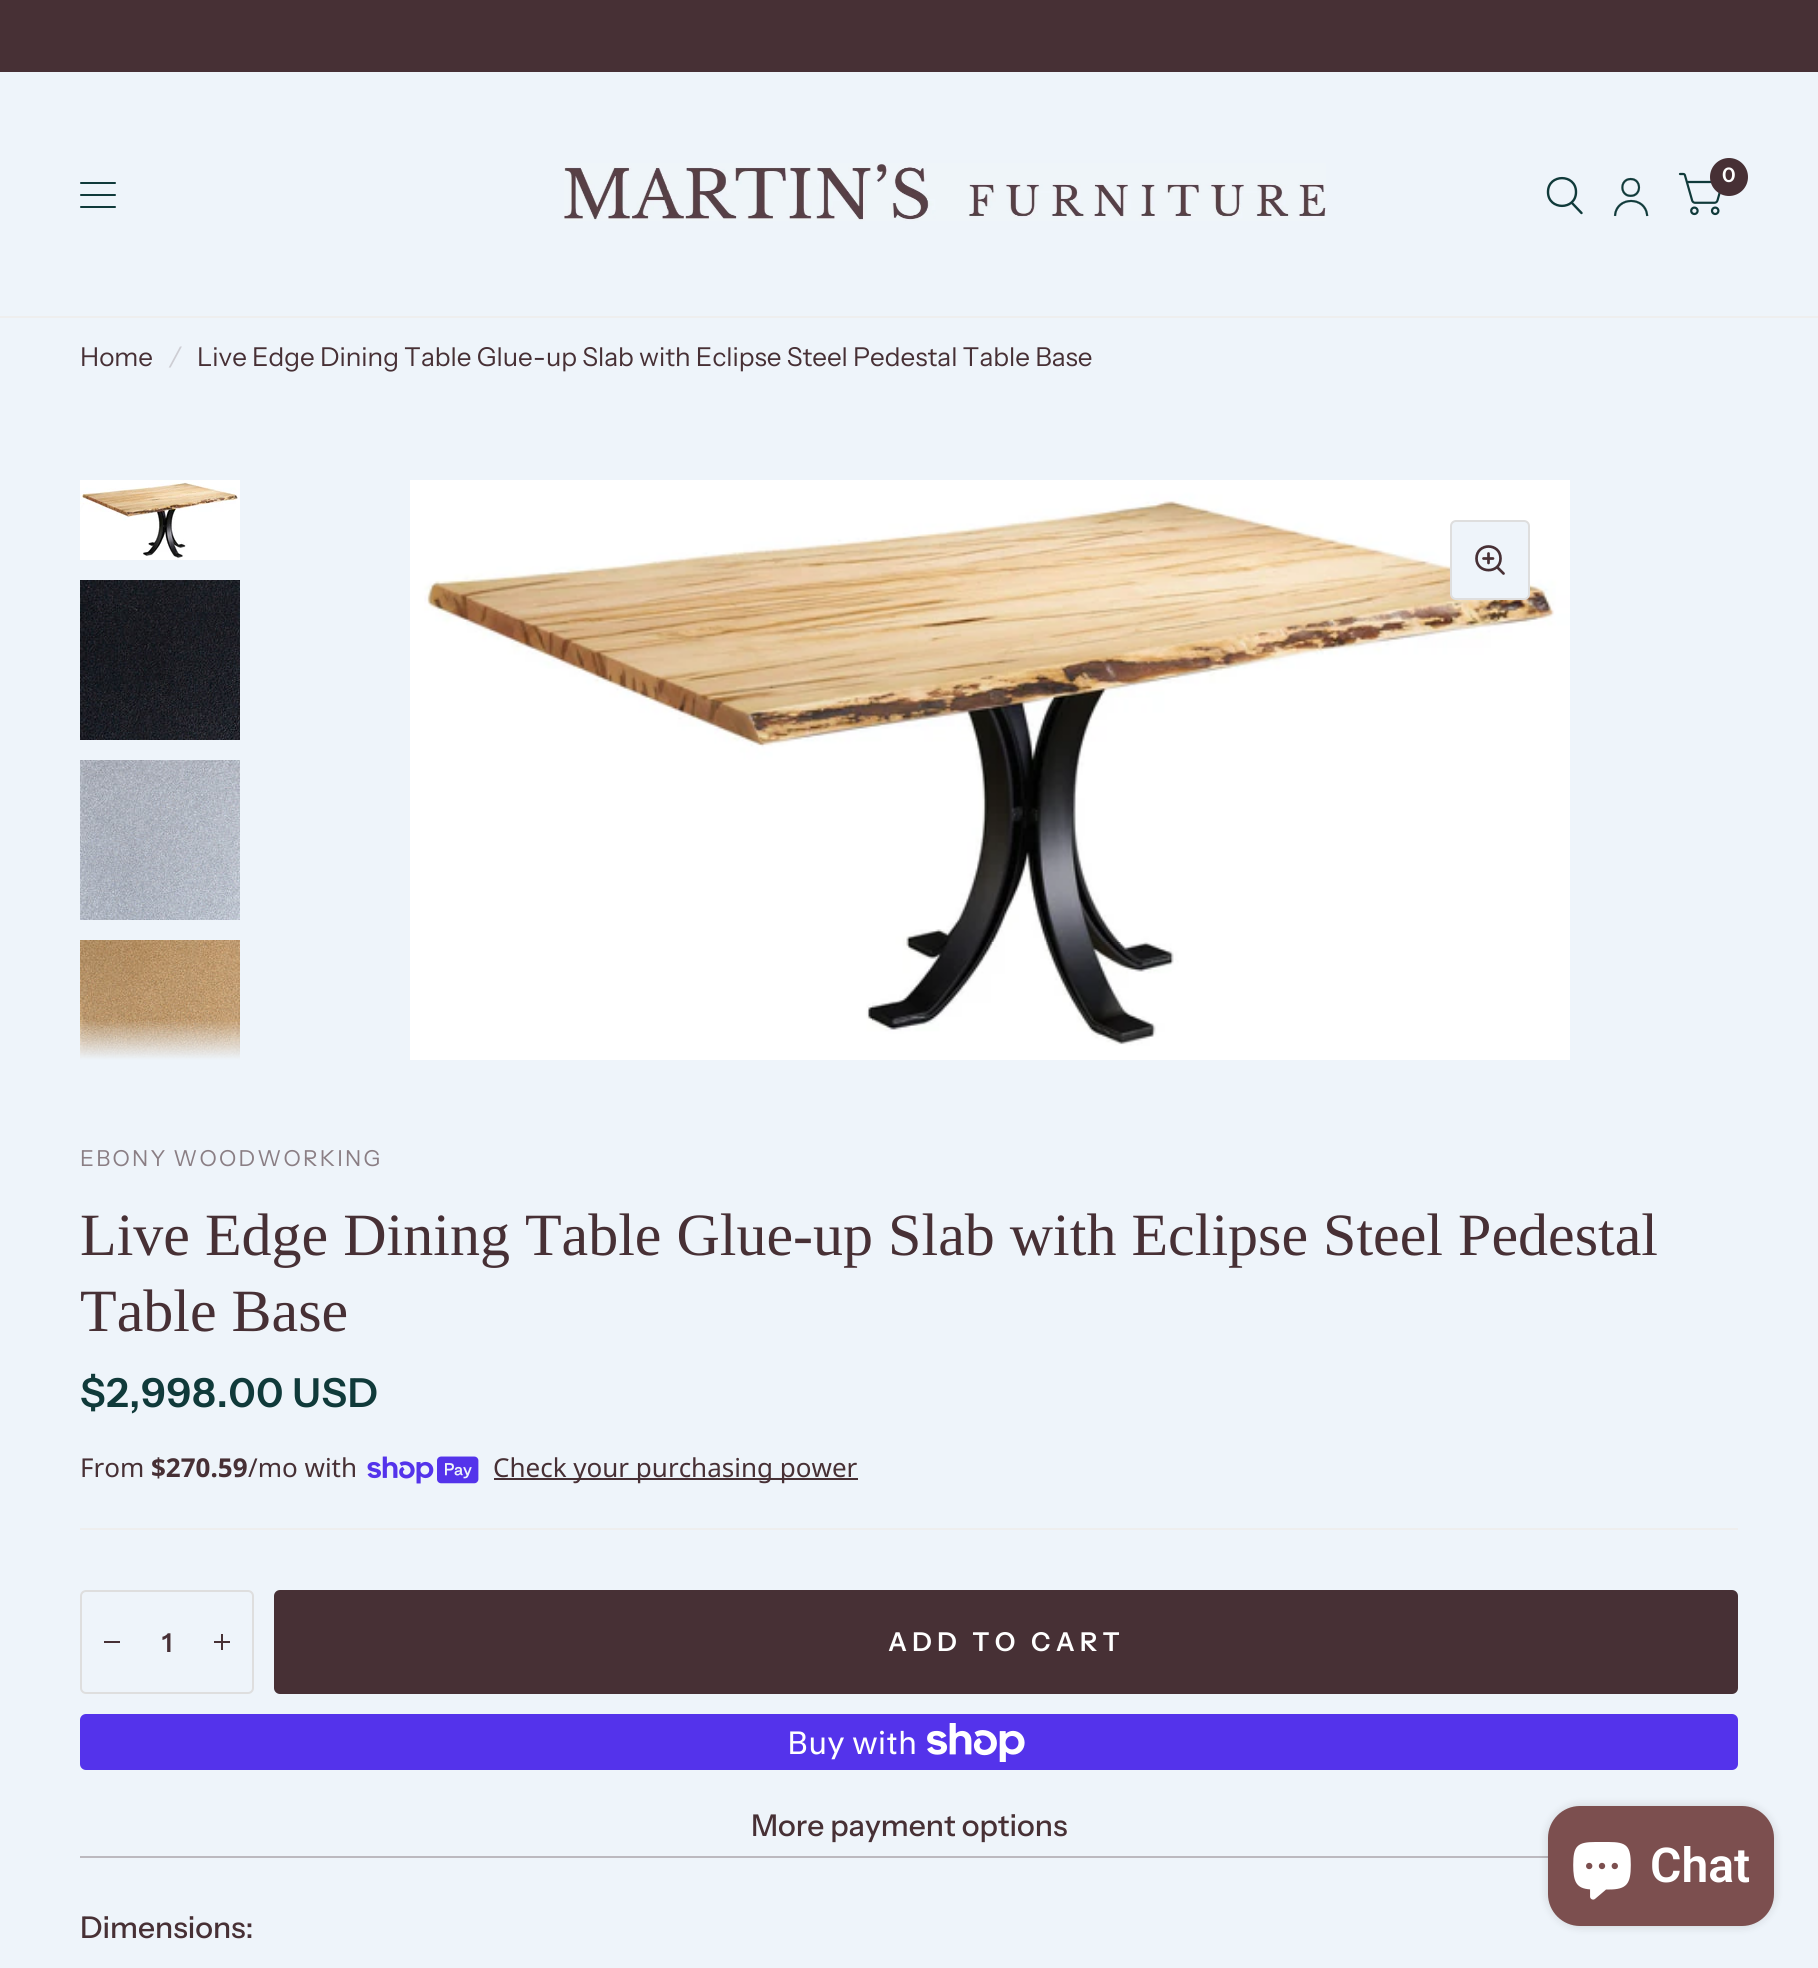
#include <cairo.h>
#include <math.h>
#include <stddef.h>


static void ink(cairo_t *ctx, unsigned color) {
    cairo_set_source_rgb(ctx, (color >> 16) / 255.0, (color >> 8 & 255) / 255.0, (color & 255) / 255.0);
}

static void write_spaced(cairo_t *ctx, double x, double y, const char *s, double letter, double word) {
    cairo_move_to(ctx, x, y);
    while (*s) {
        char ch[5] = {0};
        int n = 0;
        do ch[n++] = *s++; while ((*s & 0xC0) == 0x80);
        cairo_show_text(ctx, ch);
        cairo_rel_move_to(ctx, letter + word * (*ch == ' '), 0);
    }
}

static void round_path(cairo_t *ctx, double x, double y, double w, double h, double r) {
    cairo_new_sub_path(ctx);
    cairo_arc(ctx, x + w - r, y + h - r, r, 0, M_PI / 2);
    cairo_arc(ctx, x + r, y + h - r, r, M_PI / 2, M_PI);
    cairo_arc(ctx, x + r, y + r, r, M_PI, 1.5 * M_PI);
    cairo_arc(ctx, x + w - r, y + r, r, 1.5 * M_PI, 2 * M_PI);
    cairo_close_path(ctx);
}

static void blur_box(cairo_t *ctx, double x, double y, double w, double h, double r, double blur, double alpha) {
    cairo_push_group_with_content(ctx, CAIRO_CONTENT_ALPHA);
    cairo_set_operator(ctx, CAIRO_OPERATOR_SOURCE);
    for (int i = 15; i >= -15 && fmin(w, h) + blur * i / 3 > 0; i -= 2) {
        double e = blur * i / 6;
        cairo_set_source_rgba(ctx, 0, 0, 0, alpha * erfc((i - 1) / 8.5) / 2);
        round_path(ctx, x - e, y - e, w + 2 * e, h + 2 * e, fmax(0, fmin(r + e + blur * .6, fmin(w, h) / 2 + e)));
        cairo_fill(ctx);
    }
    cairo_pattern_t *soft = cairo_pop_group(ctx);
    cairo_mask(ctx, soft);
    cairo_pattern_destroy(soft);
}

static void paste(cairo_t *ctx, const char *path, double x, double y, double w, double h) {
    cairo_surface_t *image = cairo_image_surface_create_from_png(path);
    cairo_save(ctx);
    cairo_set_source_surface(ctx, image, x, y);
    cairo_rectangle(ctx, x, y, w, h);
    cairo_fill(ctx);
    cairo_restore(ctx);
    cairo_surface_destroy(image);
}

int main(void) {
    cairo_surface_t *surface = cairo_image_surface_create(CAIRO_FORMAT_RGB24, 1818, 1968);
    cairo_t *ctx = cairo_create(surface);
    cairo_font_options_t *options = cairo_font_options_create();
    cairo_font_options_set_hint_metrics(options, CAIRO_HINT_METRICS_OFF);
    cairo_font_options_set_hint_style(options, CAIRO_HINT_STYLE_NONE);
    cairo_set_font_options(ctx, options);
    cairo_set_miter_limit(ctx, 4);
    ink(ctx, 0xEEF4FA);
    cairo_paint(ctx);
    ink(ctx, 0x473035);
    cairo_rectangle(ctx, 0, 0, 1818, 72);
    cairo_fill(ctx);
    ink(ctx, 0xEEEEEE);
    cairo_rectangle(ctx, 0, 316, 1818, 2);
    cairo_fill(ctx);
    paste(ctx, "media/1.png", 564, 163, 762, 58);
    cairo_new_path(ctx);
    cairo_move_to(ctx, 1572, 203);
    cairo_line_to(ctx, 1581.5, 213);
    cairo_move_to(ctx, 1576, 192);
    cairo_curve_to(ctx, 1576, 210.5, 1548, 210.5, 1548, 192);
    cairo_curve_to(ctx, 1548, 173.5, 1576, 173.5, 1576, 192);
    cairo_close_path(ctx);
    ink(ctx, 0x103A3A);
    cairo_set_line_width(ctx, 2.4);
    cairo_set_line_cap(ctx, CAIRO_LINE_CAP_ROUND);
    cairo_set_line_join(ctx, CAIRO_LINE_JOIN_ROUND);
    cairo_stroke(ctx);
    paste(ctx, "media/2.png", 1613, 177, 36, 40);
    paste(ctx, "media/3.png", 1678, 172, 43, 44);
    ink(ctx, 0x473035);
    cairo_arc(ctx, 1729, 177, 19, 0, 2 * M_PI);
    cairo_fill(ctx);
    cairo_select_font_face(ctx, "Instrument Sans SemiBold", CAIRO_FONT_SLANT_NORMAL, CAIRO_FONT_WEIGHT_NORMAL);
    cairo_set_font_size(ctx, 20);
    ink(ctx, 0xFFFFFF);
    cairo_move_to(ctx, 1722, 182);
    cairo_show_text(ctx, "0");
    ink(ctx, 0x103A3A);
    round_path(ctx, 80, 182, 36, 2, 1);
    cairo_fill(ctx);
    round_path(ctx, 80, 194, 36, 2, 1);
    cairo_fill(ctx);
    round_path(ctx, 80, 206, 36, 2, 1);
    cairo_fill(ctx);
    cairo_select_font_face(ctx, "Instrument Sans", CAIRO_FONT_SLANT_NORMAL, CAIRO_FONT_WEIGHT_NORMAL);
    cairo_set_font_size(ctx, 26);
    ink(ctx, 0x473035);
    cairo_move_to(ctx, 80, 366);
    cairo_show_text(ctx, "Home");
    cairo_select_font_face(ctx, "Instrument Sans", CAIRO_FONT_SLANT_ITALIC, CAIRO_FONT_WEIGHT_NORMAL);
    ink(ctx, 0xCDCDD3);
    cairo_move_to(ctx, 169, 366);
    cairo_show_text(ctx, "/");
    cairo_select_font_face(ctx, "Instrument Sans", CAIRO_FONT_SLANT_NORMAL, CAIRO_FONT_WEIGHT_NORMAL);
    ink(ctx, 0x473035);
    cairo_move_to(ctx, 197, 366);
    cairo_show_text(ctx, "Live Edge Dining Table Glue-up Slab with Eclipse Steel Pedestal Table Base");
    paste(ctx, "media/4.png", 80, 480, 160, 80);
    paste(ctx, "media/5.png", 80, 580, 160, 160);
    paste(ctx, "media/6.png", 80, 760, 160, 160);
    paste(ctx, "media/7.png", 80, 940, 160, 120);
    paste(ctx, "media/8.png", 410, 480, 1160, 580);
    ink(ctx, 0xEEF4FA);
    round_path(ctx, 1451, 521, 78, 78, 5);
    cairo_fill_preserve(ctx);
    ink(ctx, 0xDEDEDE);
    cairo_set_line_width(ctx, 2);
    cairo_set_line_cap(ctx, CAIRO_LINE_CAP_BUTT);
    cairo_set_line_join(ctx, CAIRO_LINE_JOIN_MITER);
    cairo_stroke(ctx);
    cairo_new_path(ctx);
    cairo_move_to(ctx, 1483.5, 558.5);
    cairo_line_to(ctx, 1493, 558.5);
    cairo_move_to(ctx, 1488.5, 553.5);
    cairo_line_to(ctx, 1488.5, 563);
    cairo_move_to(ctx, 1497, 567);
    cairo_line_to(ctx, 1503.5, 573.5);
    cairo_move_to(ctx, 1500.5, 558.5);
    cairo_curve_to(ctx, 1500.5, 574, 1476.5, 574, 1476.5, 558.5);
    cairo_curve_to(ctx, 1476.5, 542.5, 1500.5, 542.5, 1500.5, 558.5);
    cairo_close_path(ctx);
    ink(ctx, 0x473035);
    cairo_set_line_width(ctx, 2.7);
    cairo_set_line_cap(ctx, CAIRO_LINE_CAP_ROUND);
    cairo_set_line_join(ctx, CAIRO_LINE_JOIN_ROUND);
    cairo_stroke(ctx);
    cairo_set_font_size(ctx, 22);
    ink(ctx, 0x8A7E84);
    write_spaced(ctx, 80, 1166, "EBONY WOODWORKING", 2.25, -1);
    ink(ctx, 0xEEEEEE);
    cairo_rectangle(ctx, 80, 1528, 1658, 2);
    cairo_fill(ctx);
    cairo_select_font_face(ctx, "Liberation Serif", CAIRO_FONT_SLANT_NORMAL, CAIRO_FONT_WEIGHT_NORMAL);
    cairo_set_font_size(ctx, 60);
    ink(ctx, 0x473035);
    cairo_move_to(ctx, 80, 1255);
    cairo_show_text(ctx, "Live Edge Dining Table Glue-up Slab with Eclipse Steel Pedestal");
    cairo_move_to(ctx, 80, 1331);
    cairo_show_text(ctx, "Table Base");
    cairo_select_font_face(ctx, "Instrument Sans SemiBold", CAIRO_FONT_SLANT_NORMAL, CAIRO_FONT_WEIGHT_NORMAL);
    cairo_set_font_size(ctx, 40);
    ink(ctx, 0x103A3A);
    write_spaced(ctx, 80, 1407, "$2,998.00 USD", 0.75, 0);
    cairo_select_font_face(ctx, "Noto Sans", CAIRO_FONT_SLANT_NORMAL, CAIRO_FONT_WEIGHT_NORMAL);
    cairo_set_font_size(ctx, 26);
    ink(ctx, 0x473035);
    cairo_move_to(ctx, 80, 1477);
    cairo_show_text(ctx, "From");
    cairo_select_font_face(ctx, "Noto Sans", CAIRO_FONT_SLANT_NORMAL, CAIRO_FONT_WEIGHT_BOLD);
    cairo_move_to(ctx, 151, 1477);
    cairo_show_text(ctx, "$270.59");
    cairo_select_font_face(ctx, "Noto Sans", CAIRO_FONT_SLANT_NORMAL, CAIRO_FONT_WEIGHT_NORMAL);
    cairo_move_to(ctx, 248, 1477);
    cairo_show_text(ctx, "/mo with");
    paste(ctx, "media/9.png", 367, 1456, 112, 28);
    cairo_rectangle(ctx, 494, 1478, 364, 2);
    cairo_fill(ctx);
    cairo_move_to(ctx, 493, 1477);
    cairo_show_text(ctx, "Check your purchasing power");
    round_path(ctx, 81, 1591, 172, 102, 5);
    ink(ctx, 0xDEDEDE);
    cairo_set_line_width(ctx, 2);
    cairo_set_line_cap(ctx, CAIRO_LINE_CAP_BUTT);
    cairo_set_line_join(ctx, CAIRO_LINE_JOIN_MITER);
    cairo_stroke(ctx);
    ink(ctx, 0x473035);
    cairo_rectangle(ctx, 104, 1641, 16, 2);
    cairo_fill(ctx);
    cairo_select_font_face(ctx, "Instrument Sans SemiBold", CAIRO_FONT_SLANT_NORMAL, CAIRO_FONT_WEIGHT_NORMAL);
    cairo_move_to(ctx, 162, 1652);
    cairo_show_text(ctx, "1");
    cairo_rectangle(ctx, 221, 1634, 2, 16);
    cairo_fill(ctx);
    cairo_rectangle(ctx, 214, 1641, 16, 2);
    cairo_fill(ctx);
    round_path(ctx, 274, 1590, 1464, 104, 6);
    cairo_fill(ctx);
    ink(ctx, 0xFFFFFF);
    write_spaced(ctx, 888, 1651, "ADD TO CART", 5.25, 0);
    ink(ctx, 0x5433EB);
    round_path(ctx, 80, 1714, 1658, 56, 6);
    cairo_fill(ctx);
    cairo_select_font_face(ctx, "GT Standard", CAIRO_FONT_SLANT_NORMAL, CAIRO_FONT_WEIGHT_NORMAL);
    cairo_set_font_size(ctx, 32);
    ink(ctx, 0xFFFFFF);
    cairo_move_to(ctx, 787, 1754);
    cairo_show_text(ctx, "Buy with");
    paste(ctx, "media/10.png", 927, 1723, 98, 39);
    cairo_select_font_face(ctx, "Instrument Sans Medium", CAIRO_FONT_SLANT_NORMAL, CAIRO_FONT_WEIGHT_NORMAL);
    cairo_set_font_size(ctx, 30);
    ink(ctx, 0x473035);
    cairo_move_to(ctx, 751, 1836);
    cairo_show_text(ctx, "More payment options");
    ink(ctx, 0xBCB9BF);
    cairo_rectangle(ctx, 80, 1856, 1468, 2);
    cairo_fill(ctx);
    ink(ctx, 0x473035);
    cairo_move_to(ctx, 80, 1938);
    cairo_show_text(ctx, "Dimensions:");
    ink(ctx, 0x000000);
    blur_box(ctx, 1548, 1806, 226, 120, 32, 5, 0.15);
    ink(ctx, 0x7C4F4F);
    round_path(ctx, 1548, 1806, 226, 120, 32);
    cairo_fill(ctx);
    paste(ctx, "media/11.png", 1573, 1842, 58, 58);
    cairo_select_font_face(ctx, "Roboto SemiBold", CAIRO_FONT_SLANT_NORMAL, CAIRO_FONT_WEIGHT_NORMAL);
    cairo_set_font_size(ctx, 48);
    ink(ctx, 0xFFFFFF);
    cairo_move_to(ctx, 1650, 1882);
    cairo_show_text(ctx, "Chat");
    cairo_surface_write_to_png(surface, "image.png");
    cairo_font_options_destroy(options);
    cairo_destroy(ctx);
    cairo_surface_destroy(surface);
    return 0;
}
